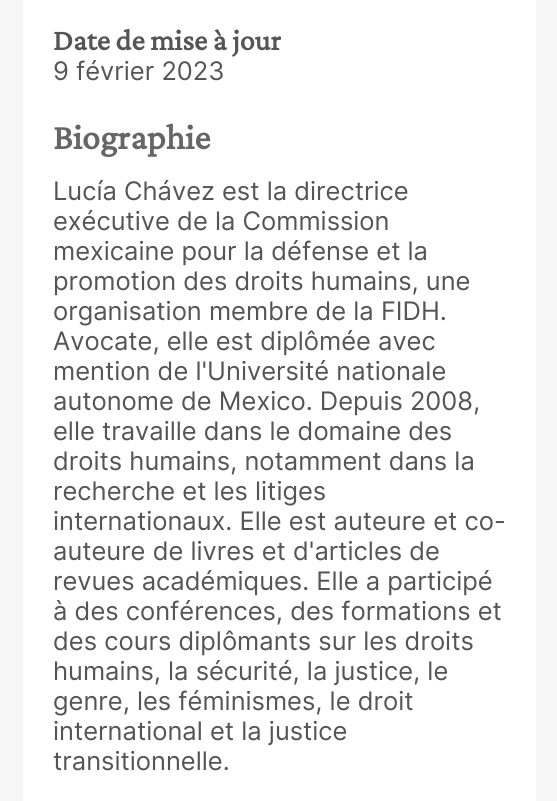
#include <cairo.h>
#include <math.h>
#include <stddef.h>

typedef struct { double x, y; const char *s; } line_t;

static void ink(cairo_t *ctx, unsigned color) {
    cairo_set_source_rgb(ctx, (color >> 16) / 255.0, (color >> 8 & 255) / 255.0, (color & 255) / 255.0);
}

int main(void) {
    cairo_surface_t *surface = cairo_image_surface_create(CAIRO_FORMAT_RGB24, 557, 801);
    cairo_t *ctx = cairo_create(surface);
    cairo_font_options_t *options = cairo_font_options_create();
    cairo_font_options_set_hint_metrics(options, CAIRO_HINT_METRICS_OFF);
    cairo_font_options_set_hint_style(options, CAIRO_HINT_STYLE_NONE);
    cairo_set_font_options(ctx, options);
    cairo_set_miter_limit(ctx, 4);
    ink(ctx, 0xF6F6F6);
    cairo_paint(ctx);
    ink(ctx, 0xFFFFFF);
    cairo_rectangle(ctx, 23, 0, 513, 801);
    cairo_fill(ctx);
    cairo_select_font_face(ctx, "Crimson Pro", CAIRO_FONT_SLANT_NORMAL, CAIRO_FONT_WEIGHT_BOLD);
    cairo_set_font_size(ctx, 30);
    ink(ctx, 0x555555);
    cairo_move_to(ctx, 53, 50);
    cairo_show_text(ctx, "Date de mise à jour");
    cairo_select_font_face(ctx, "Inter", CAIRO_FONT_SLANT_NORMAL, CAIRO_FONT_WEIGHT_NORMAL);
    cairo_set_font_size(ctx, 25.5);
    cairo_move_to(ctx, 53, 80);
    cairo_show_text(ctx, "9 février 2023");
    cairo_select_font_face(ctx, "Crimson Pro", CAIRO_FONT_SLANT_NORMAL, CAIRO_FONT_WEIGHT_BOLD);
    cairo_set_font_size(ctx, 36);
    ink(ctx, 0x666666);
    cairo_move_to(ctx, 53, 149);
    cairo_show_text(ctx, "Biographie");
    cairo_select_font_face(ctx, "Inter", CAIRO_FONT_SLANT_NORMAL, CAIRO_FONT_WEIGHT_NORMAL);
    cairo_set_font_size(ctx, 25.5);
    ink(ctx, 0x555555);
    {
        static const line_t items[] = {
            {53, 200, "Lucía Chávez est la directrice"},
            {53, 230, "exécutive de la Commission"},
            {53, 260, "mexicaine pour la défense et la"},
            {53, 290, "promotion des droits humains, une"},
            {53, 320, "organisation membre de la FIDH."},
            {53, 350, "Avocate, elle est diplômée avec"},
            {53, 380, "mention de l'Université nationale"},
            {53, 410, "autonome de Mexico. Depuis 2008,"},
            {53, 440, "elle travaille dans le domaine des"},
            {53, 470, "droits humains, notamment dans la"},
            {53, 500, "recherche et les litiges"},
            {53, 530, "internationaux. Elle est auteure et co-"},
            {53, 560, "auteure de livres et d'articles de"},
            {53, 590, "revues académiques. Elle a participé"},
            {53, 620, "à des conférences, des formations et"},
            {53, 650, "des cours diplômants sur les droits"},
            {53, 680, "humains, la sécurité, la justice, le"},
            {53, 710, "genre, les féminismes, le droit"},
            {53, 740, "international et la justice"},
            {53, 770, "transitionnelle."},
        };
        for (size_t i = 0; i < sizeof items / sizeof *items; i++) {
            cairo_move_to(ctx, items[i].x, items[i].y);
            cairo_show_text(ctx, items[i].s);
        }
    }
    cairo_surface_write_to_png(surface, "image.png");
    cairo_font_options_destroy(options);
    cairo_destroy(ctx);
    cairo_surface_destroy(surface);
    return 0;
}
